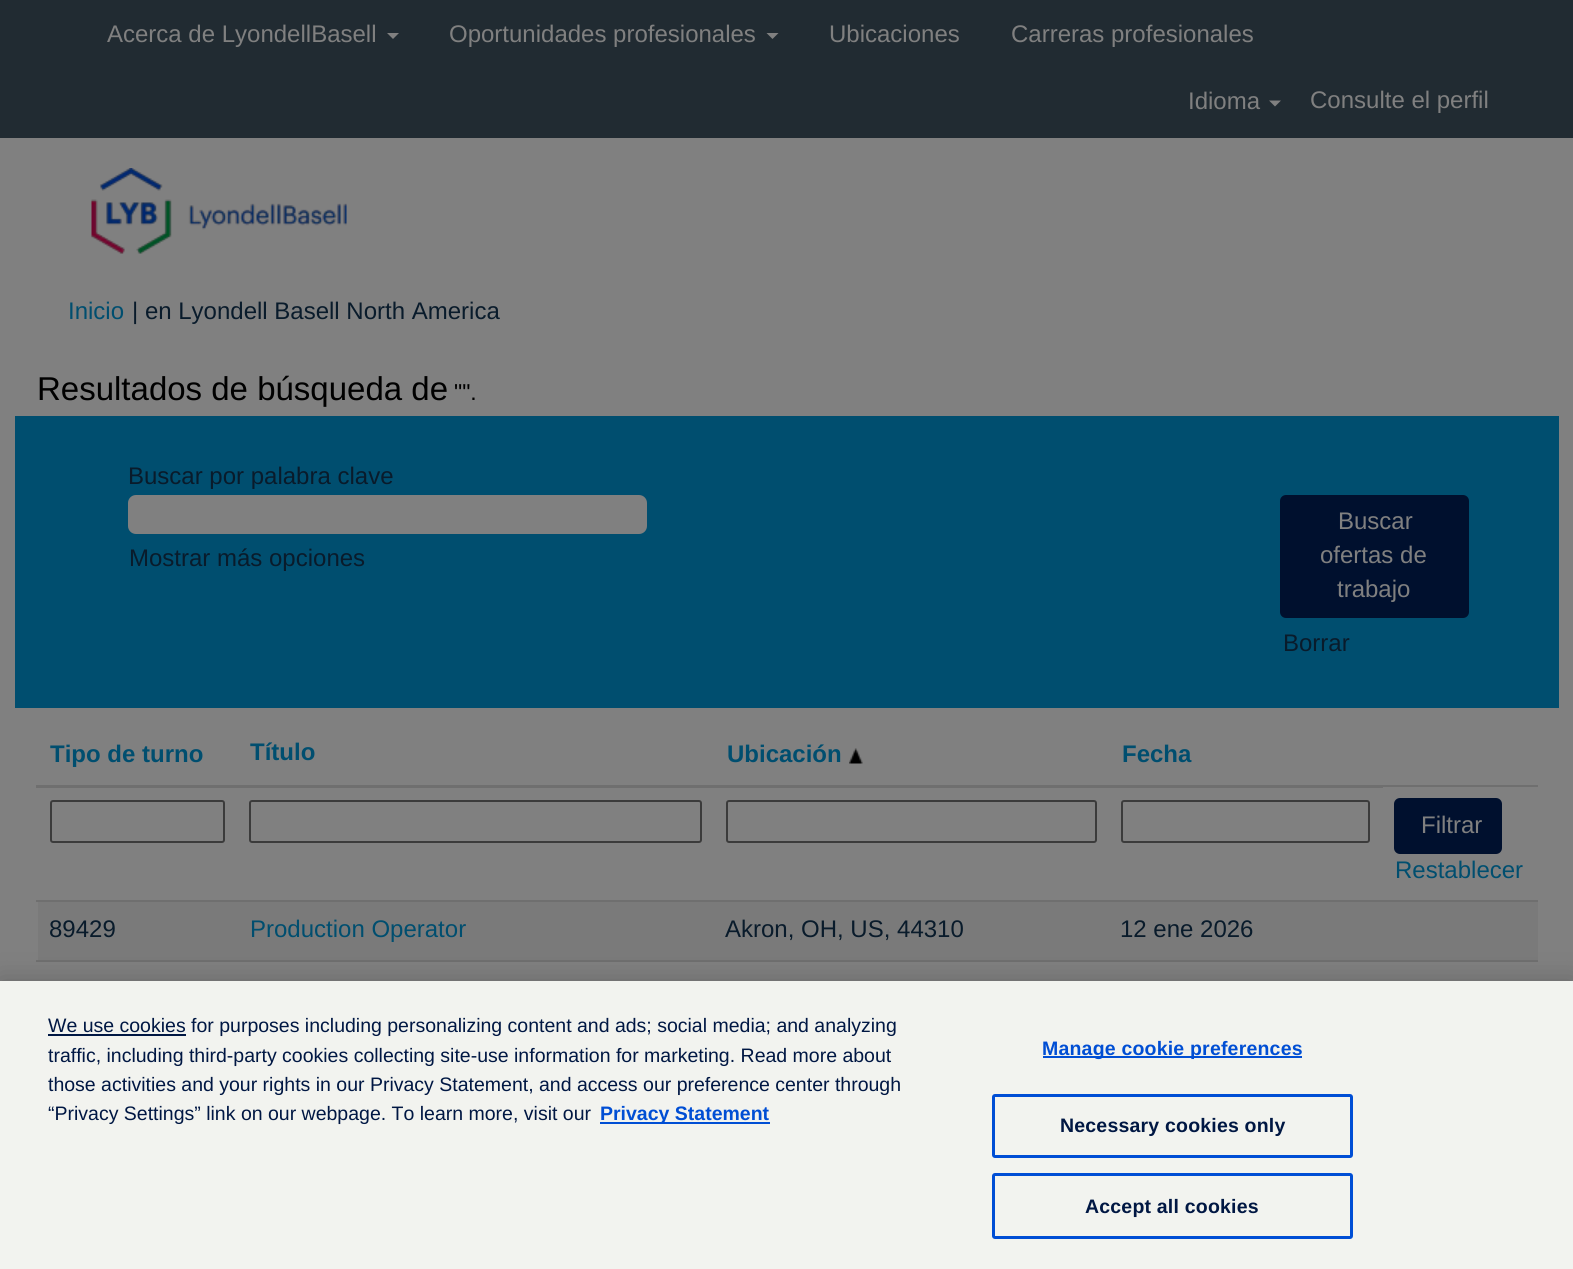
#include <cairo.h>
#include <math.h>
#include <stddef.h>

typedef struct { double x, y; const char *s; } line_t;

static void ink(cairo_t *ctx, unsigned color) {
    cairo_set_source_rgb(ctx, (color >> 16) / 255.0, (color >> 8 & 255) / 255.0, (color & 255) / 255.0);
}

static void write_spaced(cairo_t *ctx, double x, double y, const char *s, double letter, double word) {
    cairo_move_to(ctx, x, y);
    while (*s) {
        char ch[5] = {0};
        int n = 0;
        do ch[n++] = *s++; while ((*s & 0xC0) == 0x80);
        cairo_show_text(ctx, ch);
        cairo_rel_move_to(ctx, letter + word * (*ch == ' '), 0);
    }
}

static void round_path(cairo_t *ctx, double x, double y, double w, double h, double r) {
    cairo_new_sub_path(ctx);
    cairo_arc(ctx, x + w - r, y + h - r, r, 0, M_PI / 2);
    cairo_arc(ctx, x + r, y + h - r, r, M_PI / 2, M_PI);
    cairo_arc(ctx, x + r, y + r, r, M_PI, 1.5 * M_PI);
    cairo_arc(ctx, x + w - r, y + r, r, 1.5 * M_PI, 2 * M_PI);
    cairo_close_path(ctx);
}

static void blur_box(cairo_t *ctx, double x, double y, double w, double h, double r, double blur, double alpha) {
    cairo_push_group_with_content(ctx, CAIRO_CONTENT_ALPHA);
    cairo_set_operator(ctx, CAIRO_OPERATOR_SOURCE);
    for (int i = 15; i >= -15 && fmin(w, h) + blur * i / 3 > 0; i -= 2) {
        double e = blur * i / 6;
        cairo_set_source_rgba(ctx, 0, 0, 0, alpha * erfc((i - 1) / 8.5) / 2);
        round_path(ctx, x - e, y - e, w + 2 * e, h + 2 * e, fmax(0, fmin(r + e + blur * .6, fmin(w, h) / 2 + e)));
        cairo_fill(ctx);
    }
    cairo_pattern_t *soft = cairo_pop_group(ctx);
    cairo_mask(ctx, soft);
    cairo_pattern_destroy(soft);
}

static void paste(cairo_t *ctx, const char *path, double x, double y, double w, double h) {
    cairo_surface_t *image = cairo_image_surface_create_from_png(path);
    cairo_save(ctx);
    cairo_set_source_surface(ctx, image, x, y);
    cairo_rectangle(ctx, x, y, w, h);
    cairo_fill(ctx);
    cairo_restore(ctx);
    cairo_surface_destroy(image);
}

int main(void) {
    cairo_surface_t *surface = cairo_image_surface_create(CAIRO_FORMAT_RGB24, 1573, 1269);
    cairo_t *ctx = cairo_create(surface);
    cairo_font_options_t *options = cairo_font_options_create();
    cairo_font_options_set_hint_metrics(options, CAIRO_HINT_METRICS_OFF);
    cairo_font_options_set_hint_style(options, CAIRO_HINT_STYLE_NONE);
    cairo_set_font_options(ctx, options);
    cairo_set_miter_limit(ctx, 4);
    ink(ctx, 0x808080);
    cairo_paint(ctx);
    ink(ctx, 0x212B32);
    cairo_rectangle(ctx, 0, 0, 1573, 138);
    cairo_fill(ctx);
    cairo_select_font_face(ctx, "Liberation Sans", CAIRO_FONT_SLANT_NORMAL, CAIRO_FONT_WEIGHT_NORMAL);
    cairo_set_font_size(ctx, 24);
    ink(ctx, 0x808080);
    cairo_move_to(ctx, 107, 42);
    cairo_show_text(ctx, "Acerca de LyondellBasell");
    cairo_new_path(ctx);
    cairo_move_to(ctx, 387, 33);
    cairo_line_to(ctx, 399, 33);
    cairo_line_to(ctx, 393, 39);
    cairo_close_path(ctx);
    cairo_fill(ctx);
    cairo_move_to(ctx, 449, 42);
    cairo_show_text(ctx, "Oportunidades profesionales");
    cairo_new_path(ctx);
    cairo_move_to(ctx, 766.5, 33);
    cairo_line_to(ctx, 778.5, 33);
    cairo_line_to(ctx, 772.5, 39);
    cairo_close_path(ctx);
    cairo_fill(ctx);
    {
        static const line_t items[] = {
            {829, 42, "Ubicaciones"},
            {1011, 42, "Carreras profesionales"},
            {1188, 109, "Idioma"},
        };
        for (size_t i = 0; i < sizeof items / sizeof *items; i++) {
            cairo_move_to(ctx, items[i].x, items[i].y);
            cairo_show_text(ctx, items[i].s);
        }
    }
    cairo_new_path(ctx);
    cairo_move_to(ctx, 1269, 100.5);
    cairo_line_to(ctx, 1281, 100.5);
    cairo_line_to(ctx, 1275, 106.5);
    cairo_close_path(ctx);
    cairo_fill(ctx);
    cairo_move_to(ctx, 1310, 108);
    cairo_show_text(ctx, "Consulte el perfil");
    paste(ctx, "media/1.png", 91, 168, 256, 86);
    ink(ctx, 0x004E6F);
    cairo_move_to(ctx, 68, 319);
    cairo_show_text(ctx, "Inicio");
    ink(ctx, 0x091B2B);
    cairo_move_to(ctx, 132, 319);
    cairo_show_text(ctx, "| en Lyondell Basell North America");
    cairo_set_font_size(ctx, 33);
    ink(ctx, 0x000000);
    cairo_move_to(ctx, 37, 400);
    cairo_show_text(ctx, "Resultados de búsqueda de");
    cairo_set_font_size(ctx, 23);
    cairo_move_to(ctx, 454, 400);
    cairo_show_text(ctx, "\"\".");
    ink(ctx, 0x004E6F);
    cairo_rectangle(ctx, 15, 416, 1544, 292);
    cairo_fill(ctx);
    cairo_set_font_size(ctx, 24);
    ink(ctx, 0x091B2B);
    cairo_move_to(ctx, 128, 484);
    cairo_show_text(ctx, "Buscar por palabra clave");
    ink(ctx, 0x808080);
    round_path(ctx, 128, 495, 519, 39, 8);
    cairo_fill(ctx);
    ink(ctx, 0x091B2B);
    cairo_move_to(ctx, 129, 566);
    cairo_show_text(ctx, "Mostrar más opciones");
    ink(ctx, 0x00102E);
    round_path(ctx, 1280, 495, 189, 123, 6);
    cairo_fill(ctx);
    ink(ctx, 0x808080);
    {
        static const line_t items[] = {
            {1338, 529, "Buscar"},
            {1320, 563, "ofertas de"},
            {1337, 597, "trabajo"},
        };
        for (size_t i = 0; i < sizeof items / sizeof *items; i++) {
            cairo_move_to(ctx, items[i].x, items[i].y);
            cairo_show_text(ctx, items[i].s);
        }
    }
    ink(ctx, 0x091B2B);
    cairo_move_to(ctx, 1283, 651);
    cairo_show_text(ctx, "Borrar");
    cairo_select_font_face(ctx, "Liberation Sans", CAIRO_FONT_SLANT_NORMAL, CAIRO_FONT_WEIGHT_BOLD);
    ink(ctx, 0x004E6F);
    {
        static const line_t items[] = {
            {50, 762, "Tipo de turno"},
            {250, 760, "Título"},
            {727, 762, "Ubicación"},
        };
        for (size_t i = 0; i < sizeof items / sizeof *items; i++) {
            cairo_move_to(ctx, items[i].x, items[i].y);
            cairo_show_text(ctx, items[i].s);
        }
    }
    paste(ctx, "media/2.png", 849, 748, 14, 16);
    ink(ctx, 0x6F6F6F);
    cairo_rectangle(ctx, 1382, 785, 156, 2);
    cairo_fill(ctx);
    cairo_rectangle(ctx, 36, 785, 1347, 3);
    cairo_fill(ctx);
    ink(ctx, 0x004E6F);
    cairo_move_to(ctx, 1122, 762);
    cairo_show_text(ctx, "Fecha");
    round_path(ctx, 51, 801, 173, 41, 2);
    ink(ctx, 0x3B3B3B);
    cairo_stroke(ctx);
    round_path(ctx, 250, 801, 451, 41, 2);
    cairo_stroke(ctx);
    round_path(ctx, 727, 801, 369, 41, 2);
    cairo_stroke(ctx);
    round_path(ctx, 1122, 801, 247, 41, 2);
    cairo_stroke(ctx);
    ink(ctx, 0x00102E);
    round_path(ctx, 1394, 798, 108, 56, 6);
    cairo_fill(ctx);
    cairo_select_font_face(ctx, "Liberation Sans", CAIRO_FONT_SLANT_NORMAL, CAIRO_FONT_WEIGHT_NORMAL);
    ink(ctx, 0x808080);
    cairo_move_to(ctx, 1421, 833);
    cairo_show_text(ctx, "Filtrar");
    ink(ctx, 0x004E6F);
    cairo_move_to(ctx, 1395, 878);
    cairo_show_text(ctx, "Restablecer");
    ink(ctx, 0x7A7A7A);
    cairo_rectangle(ctx, 38, 902, 1500, 58);
    cairo_fill(ctx);
    ink(ctx, 0x6F6F6F);
    cairo_rectangle(ctx, 36, 900, 1502, 2);
    cairo_fill(ctx);
    ink(ctx, 0x091B2B);
    cairo_move_to(ctx, 49, 937);
    cairo_show_text(ctx, "89429");
    ink(ctx, 0x004E6F);
    cairo_move_to(ctx, 250, 937);
    cairo_show_text(ctx, "Production Operator");
    ink(ctx, 0x091B2B);
    cairo_move_to(ctx, 725, 937);
    cairo_show_text(ctx, "Akron, OH, US, 44310");
    cairo_move_to(ctx, 1120, 937);
    cairo_show_text(ctx, "12 ene 2026");
    ink(ctx, 0x6F6F6F);
    cairo_rectangle(ctx, 36, 960, 1502, 2);
    cairo_fill(ctx);
    ink(ctx, 0x000000);
    blur_box(ctx, 0, 981, 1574, 288, 0, 13.5, 0.2);
    ink(ctx, 0xF2F3EF);
    cairo_rectangle(ctx, 0, 981, 1573, 288);
    cairo_fill(ctx);
    ink(ctx, 0x001743);
    cairo_rectangle(ctx, 48, 1034, 138, 2);
    cairo_fill(ctx);
    cairo_set_font_size(ctx, 19.5);
    {
        static const line_t items[] = {
            {48, 1032, "We use cookies for purposes including personalizing content and ads; social media; and analyzing"},
            {48, 1062, "traffic, including third-party cookies collecting site-use information for marketing. Read more about"},
            {48, 1091, "those activities and your rights in our Privacy Statement, and access our preference center through"},
            {48, 1120, "“Privacy Settings” link on our webpage. To learn more, visit our"},
        };
        for (size_t i = 0; i < sizeof items / sizeof *items; i++) {
            cairo_move_to(ctx, items[i].x, items[i].y);
            cairo_show_text(ctx, items[i].s);
        }
    }
    ink(ctx, 0x004ED4);
    cairo_rectangle(ctx, 600, 1122, 170, 2);
    cairo_fill(ctx);
    cairo_select_font_face(ctx, "Liberation Sans", CAIRO_FONT_SLANT_NORMAL, CAIRO_FONT_WEIGHT_BOLD);
    cairo_move_to(ctx, 600, 1120);
    cairo_show_text(ctx, "Privacy Statement");
    cairo_rectangle(ctx, 1043, 1056, 259, 2);
    cairo_fill(ctx);
    write_spaced(ctx, 1042, 1055, "Manage cookie preferences", 0.2, 0);
    round_path(ctx, 993.5, 1095.5, 358, 61, 1.5);
    ink(ctx, 0x004ED5);
    cairo_set_line_width(ctx, 3);
    cairo_stroke(ctx);
    ink(ctx, 0x001743);
    write_spaced(ctx, 1060, 1132, "Necessary cookies only", 0.2, 0);
    round_path(ctx, 993.5, 1174.5, 358, 63, 1.5);
    ink(ctx, 0x004ED5);
    cairo_stroke(ctx);
    ink(ctx, 0x001743);
    write_spaced(ctx, 1085, 1213, "Accept all cookies", 0.2, 0);
    cairo_surface_write_to_png(surface, "image.png");
    cairo_font_options_destroy(options);
    cairo_destroy(ctx);
    cairo_surface_destroy(surface);
    return 0;
}
